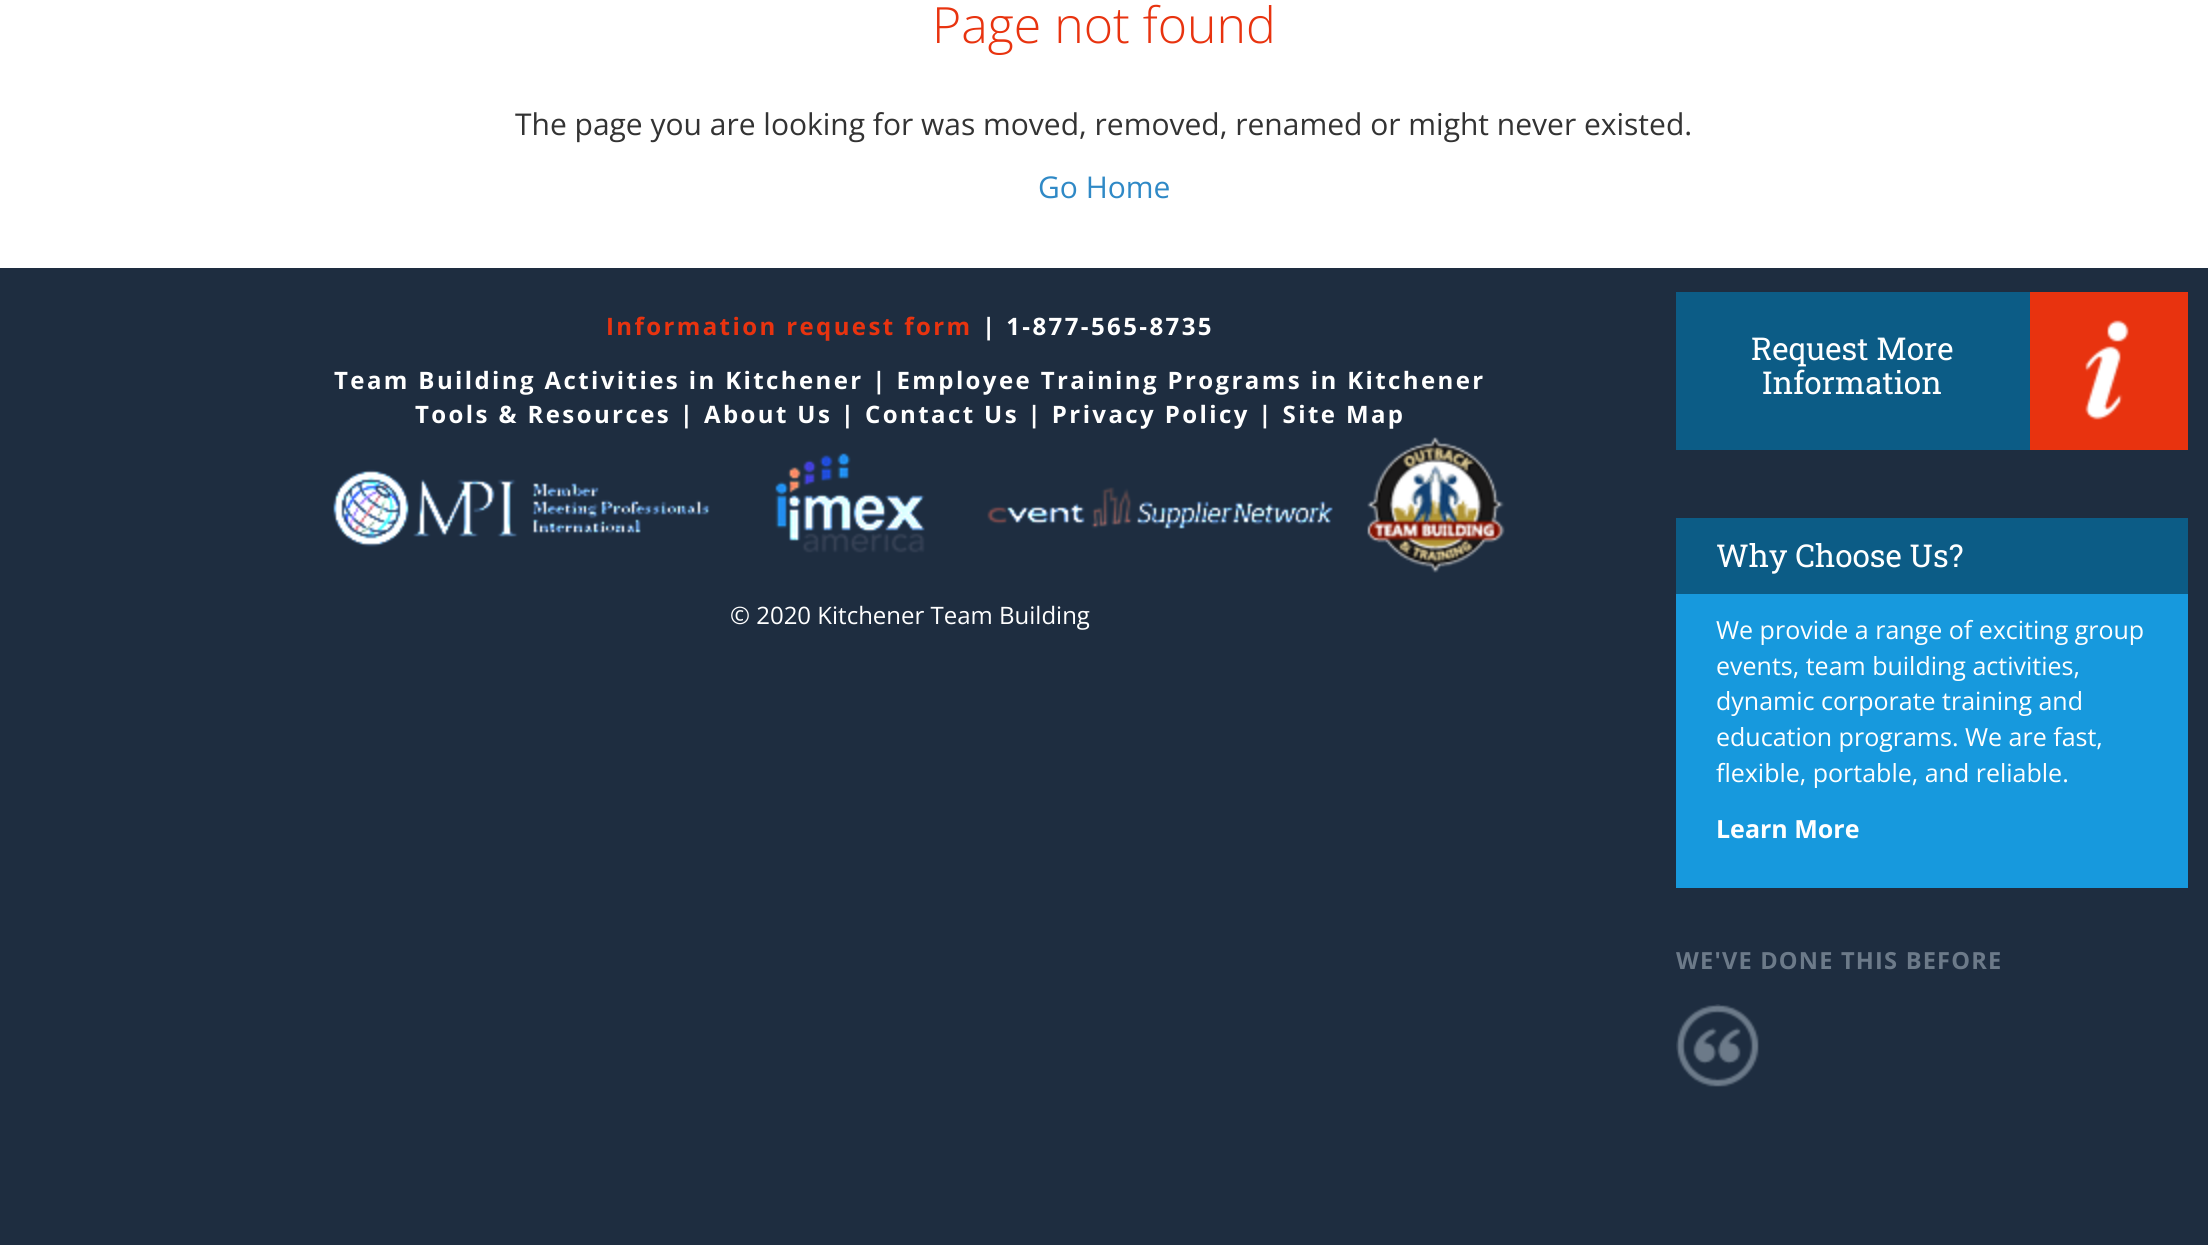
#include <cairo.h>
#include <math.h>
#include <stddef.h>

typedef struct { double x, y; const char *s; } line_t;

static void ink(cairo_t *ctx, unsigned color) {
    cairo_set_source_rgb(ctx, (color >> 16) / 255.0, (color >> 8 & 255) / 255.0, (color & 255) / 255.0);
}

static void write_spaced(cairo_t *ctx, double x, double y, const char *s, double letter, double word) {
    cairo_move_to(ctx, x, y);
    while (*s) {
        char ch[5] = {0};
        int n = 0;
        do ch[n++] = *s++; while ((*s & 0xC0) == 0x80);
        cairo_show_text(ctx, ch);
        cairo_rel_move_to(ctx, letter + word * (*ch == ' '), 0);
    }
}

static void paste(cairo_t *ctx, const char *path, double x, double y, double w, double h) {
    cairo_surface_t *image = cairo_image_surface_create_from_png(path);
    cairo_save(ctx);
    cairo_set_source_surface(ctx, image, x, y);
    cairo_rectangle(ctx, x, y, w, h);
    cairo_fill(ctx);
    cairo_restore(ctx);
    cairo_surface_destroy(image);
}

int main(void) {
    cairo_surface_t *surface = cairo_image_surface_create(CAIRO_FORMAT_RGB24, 2208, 1245);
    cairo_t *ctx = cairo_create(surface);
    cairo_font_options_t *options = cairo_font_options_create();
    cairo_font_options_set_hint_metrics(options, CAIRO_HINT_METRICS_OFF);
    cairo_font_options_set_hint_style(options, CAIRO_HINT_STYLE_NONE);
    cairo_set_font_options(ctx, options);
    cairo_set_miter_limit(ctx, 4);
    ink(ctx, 0xFFFFFF);
    cairo_paint(ctx);
    cairo_select_font_face(ctx, "Open Sans Light", CAIRO_FONT_SLANT_NORMAL, CAIRO_FONT_WEIGHT_NORMAL);
    cairo_set_font_size(ctx, 50);
    ink(ctx, 0xE8330F);
    cairo_move_to(ctx, 932, 43);
    cairo_show_text(ctx, "Page not found");
    cairo_select_font_face(ctx, "Open Sans", CAIRO_FONT_SLANT_NORMAL, CAIRO_FONT_WEIGHT_NORMAL);
    cairo_set_font_size(ctx, 30);
    ink(ctx, 0x333333);
    cairo_move_to(ctx, 515, 135);
    cairo_show_text(ctx, "The page you are looking for was moved, removed, renamed or might never existed.");
    ink(ctx, 0x2F89C6);
    cairo_move_to(ctx, 1038, 198);
    cairo_show_text(ctx, "Go Home");
    ink(ctx, 0x1E2D40);
    cairo_rectangle(ctx, 0, 268, 2208, 977);
    cairo_fill(ctx);
    cairo_select_font_face(ctx, "Open Sans", CAIRO_FONT_SLANT_NORMAL, CAIRO_FONT_WEIGHT_BOLD);
    cairo_set_font_size(ctx, 24);
    ink(ctx, 0xE8330F);
    write_spaced(ctx, 606, 335, "Information request form", 2.4, 0);
    ink(ctx, 0xFFFFFF);
    {
        static const line_t items[] = {
            {982, 335, "| 1-877-565-8735"},
            {334, 389, "Team Building Activities in Kitchener | Employee Training Programs in Kitchener"},
            {415, 423, "Tools & Resources | About Us | Contact Us | Privacy Policy | Site Map"},
        };
        for (size_t i = 0; i < sizeof items / sizeof *items; i++) {
            write_spaced(ctx, items[i].x, items[i].y, items[i].s, 2.4, 0);
        }
    }
    paste(ctx, "media/1.png", 333, 469, 377, 78);
    paste(ctx, "media/2.png", 775, 453, 150, 100);
    paste(ctx, "media/3.png", 987, 487, 346, 42);
    paste(ctx, "media/4.png", 1367, 437, 138, 136);
    cairo_select_font_face(ctx, "Open Sans", CAIRO_FONT_SLANT_NORMAL, CAIRO_FONT_WEIGHT_NORMAL);
    cairo_move_to(ctx, 730, 624);
    cairo_show_text(ctx, "© 2020 Kitchener Team Building");
    ink(ctx, 0x0C5C86);
    cairo_rectangle(ctx, 1676, 292, 354, 158);
    cairo_fill(ctx);
    paste(ctx, "media/5.png", 2030, 292, 158, 158);
    cairo_select_font_face(ctx, "Roboto Slab", CAIRO_FONT_SLANT_NORMAL, CAIRO_FONT_WEIGHT_NORMAL);
    cairo_set_font_size(ctx, 31.5);
    ink(ctx, 0xFFFFFF);
    cairo_move_to(ctx, 1751, 360);
    cairo_show_text(ctx, "Request More");
    cairo_move_to(ctx, 1762, 394);
    cairo_show_text(ctx, "Information");
    ink(ctx, 0x1799DD);
    cairo_rectangle(ctx, 1676, 594, 512, 294);
    cairo_fill(ctx);
    ink(ctx, 0x0C5C86);
    cairo_rectangle(ctx, 1676, 518, 512, 76);
    cairo_fill(ctx);
    ink(ctx, 0xFFFFFF);
    cairo_move_to(ctx, 1716, 567);
    cairo_show_text(ctx, "Why Choose Us?");
    cairo_select_font_face(ctx, "Open Sans", CAIRO_FONT_SLANT_NORMAL, CAIRO_FONT_WEIGHT_NORMAL);
    cairo_set_font_size(ctx, 25);
    {
        static const line_t items[] = {
            {1716, 639, "We provide a range of exciting group"},
            {1716, 675, "events, team building activities,"},
            {1716, 710, "dynamic corporate training and"},
            {1716, 746, "education programs. We are fast,"},
            {1716, 782, "flexible, portable, and reliable."},
        };
        for (size_t i = 0; i < sizeof items / sizeof *items; i++) {
            cairo_move_to(ctx, items[i].x, items[i].y);
            cairo_show_text(ctx, items[i].s);
        }
    }
    cairo_select_font_face(ctx, "Open Sans", CAIRO_FONT_SLANT_NORMAL, CAIRO_FONT_WEIGHT_BOLD);
    cairo_move_to(ctx, 1716, 838);
    cairo_show_text(ctx, "Learn More");
    cairo_set_font_size(ctx, 23.6);
    ink(ctx, 0x6C7A89);
    write_spaced(ctx, 1676, 969, "WE'VE DONE THIS BEFORE", 1.2, 0);
    paste(ctx, "media/6.png", 1676, 1004, 83, 83);
    cairo_surface_write_to_png(surface, "image.png");
    cairo_font_options_destroy(options);
    cairo_destroy(ctx);
    cairo_surface_destroy(surface);
    return 0;
}
